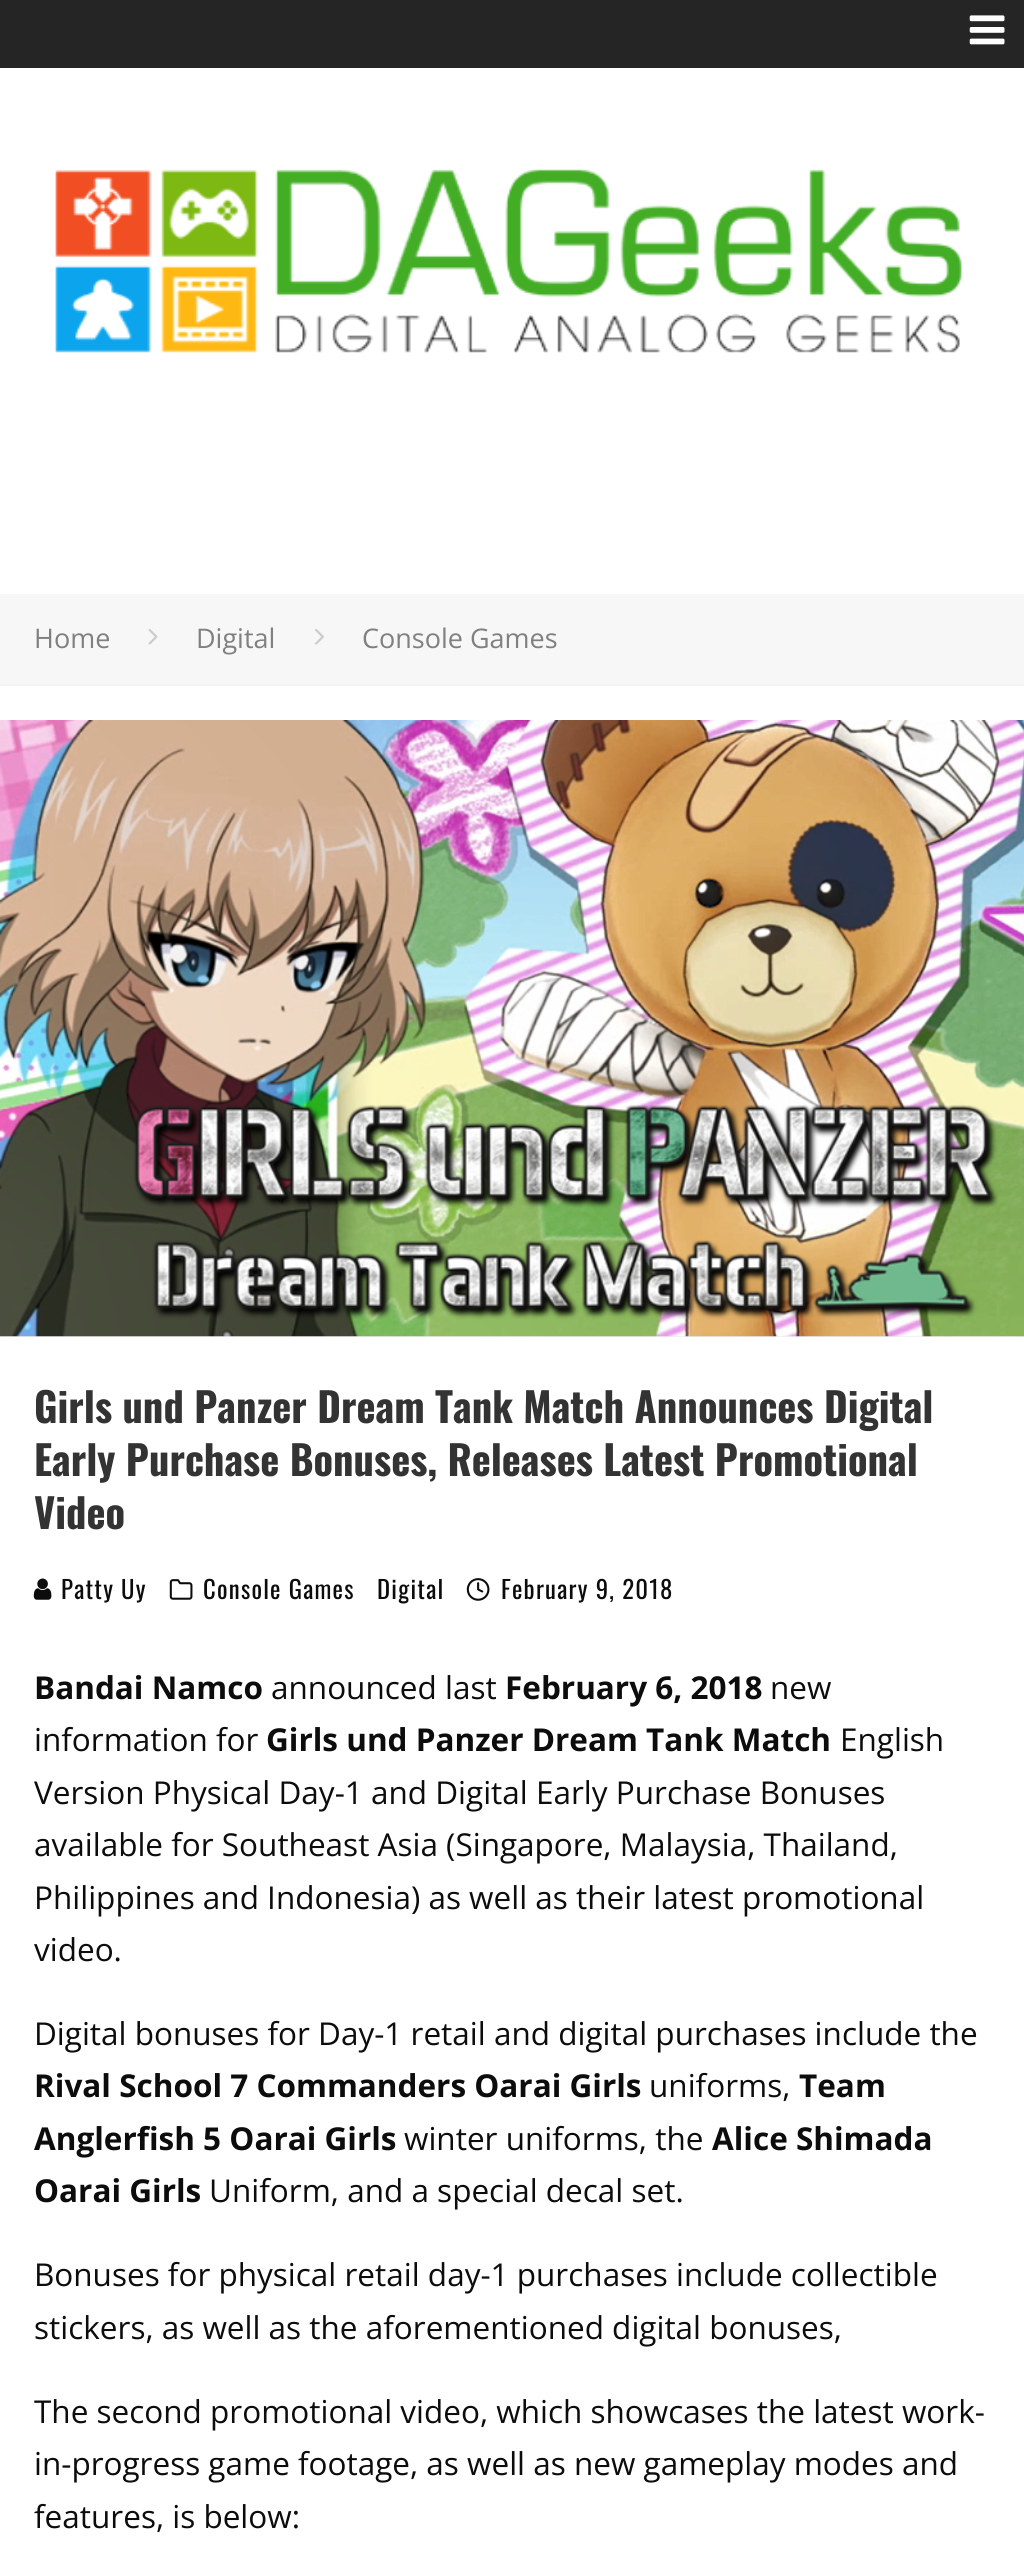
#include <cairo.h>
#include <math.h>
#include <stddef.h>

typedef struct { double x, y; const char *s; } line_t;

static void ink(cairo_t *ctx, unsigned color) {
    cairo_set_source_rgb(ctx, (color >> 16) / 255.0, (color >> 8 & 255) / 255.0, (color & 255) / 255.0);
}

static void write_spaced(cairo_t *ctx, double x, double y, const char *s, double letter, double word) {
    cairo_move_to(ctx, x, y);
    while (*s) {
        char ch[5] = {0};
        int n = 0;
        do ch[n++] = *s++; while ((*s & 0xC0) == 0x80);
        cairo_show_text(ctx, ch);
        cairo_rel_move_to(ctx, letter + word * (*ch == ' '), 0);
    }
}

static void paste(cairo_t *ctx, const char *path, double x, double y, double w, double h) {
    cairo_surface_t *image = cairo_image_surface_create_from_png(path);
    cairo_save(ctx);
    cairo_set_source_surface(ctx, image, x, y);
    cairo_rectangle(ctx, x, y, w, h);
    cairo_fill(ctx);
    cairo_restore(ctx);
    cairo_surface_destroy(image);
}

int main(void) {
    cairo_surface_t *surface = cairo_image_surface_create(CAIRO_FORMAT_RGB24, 1024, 2567);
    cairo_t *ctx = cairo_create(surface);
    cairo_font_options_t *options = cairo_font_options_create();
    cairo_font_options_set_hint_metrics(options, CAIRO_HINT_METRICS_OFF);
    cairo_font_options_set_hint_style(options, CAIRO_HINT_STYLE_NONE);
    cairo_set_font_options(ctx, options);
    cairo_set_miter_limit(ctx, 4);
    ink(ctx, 0xFFFFFF);
    cairo_paint(ctx);
    ink(ctx, 0x252525);
    cairo_rectangle(ctx, 0, 0, 1024, 68);
    cairo_fill(ctx);
    paste(ctx, "media/1.png", 969, 15, 36, 30);
    paste(ctx, "media/2.png", 55, 169, 907, 184);
    ink(ctx, 0xF7F7F7);
    cairo_rectangle(ctx, 0, 594, 1024, 90);
    cairo_fill(ctx);
    ink(ctx, 0xF3F3F3);
    cairo_rectangle(ctx, 0, 684, 1024, 2);
    cairo_fill(ctx);
    cairo_select_font_face(ctx, "Open Sans", CAIRO_FONT_SLANT_NORMAL, CAIRO_FONT_WEIGHT_NORMAL);
    cairo_set_font_size(ctx, 27);
    ink(ctx, 0x808080);
    cairo_move_to(ctx, 34, 648);
    cairo_show_text(ctx, "Home");
    paste(ctx, "media/3.png", 148, 629, 10, 16);
    cairo_move_to(ctx, 196, 648);
    cairo_show_text(ctx, "Digital");
    paste(ctx, "media/4.png", 315, 629, 9, 16);
    cairo_move_to(ctx, 362, 648);
    cairo_show_text(ctx, "Console Games");
    ink(ctx, 0xEEEEEE);
    cairo_rectangle(ctx, 0, 1336, 1024, 1);
    cairo_fill(ctx);
    paste(ctx, "media/5.png", 0, 720, 1024, 617);
    cairo_select_font_face(ctx, "Oswald", CAIRO_FONT_SLANT_NORMAL, CAIRO_FONT_WEIGHT_BOLD);
    cairo_set_font_size(ctx, 40.5);
    ink(ctx, 0x333333);
    {
        static const line_t items[] = {
            {34, 1423, "Girls und Panzer Dream Tank Match Announces Digital"},
            {34, 1476, "Early Purchase Bonuses, Releases Latest Promotional"},
            {34, 1529, "Video"},
        };
        for (size_t i = 0; i < sizeof items / sizeof *items; i++) {
            cairo_move_to(ctx, items[i].x, items[i].y);
            cairo_show_text(ctx, items[i].s);
        }
    }
    paste(ctx, "media/6.png", 33, 1578, 19, 22);
    cairo_select_font_face(ctx, "Oswald", CAIRO_FONT_SLANT_NORMAL, CAIRO_FONT_WEIGHT_NORMAL);
    cairo_set_font_size(ctx, 24.75);
    ink(ctx, 0x0C0C0C);
    write_spaced(ctx, 61, 1599, "Patty Uy", 1.25, 0);
    paste(ctx, "media/7.png", 169, 1579, 24, 21);
    write_spaced(ctx, 203, 1599, "Console Games", 1.25, 0);
    write_spaced(ctx, 377, 1599, "Digital", 1.25, 0);
    paste(ctx, "media/8.png", 466, 1578, 24, 23);
    write_spaced(ctx, 501, 1599, "February 9, 2018", 1.25, 0);
    cairo_select_font_face(ctx, "Open Sans", CAIRO_FONT_SLANT_NORMAL, CAIRO_FONT_WEIGHT_BOLD);
    cairo_set_font_size(ctx, 31.5);
    cairo_move_to(ctx, 34, 1699);
    cairo_show_text(ctx, "Bandai Namco");
    cairo_select_font_face(ctx, "Open Sans", CAIRO_FONT_SLANT_NORMAL, CAIRO_FONT_WEIGHT_NORMAL);
    cairo_move_to(ctx, 271, 1699);
    cairo_show_text(ctx, "announced last");
    cairo_select_font_face(ctx, "Open Sans", CAIRO_FONT_SLANT_NORMAL, CAIRO_FONT_WEIGHT_BOLD);
    cairo_move_to(ctx, 505, 1699);
    cairo_show_text(ctx, "February 6, 2018");
    cairo_select_font_face(ctx, "Open Sans", CAIRO_FONT_SLANT_NORMAL, CAIRO_FONT_WEIGHT_NORMAL);
    cairo_move_to(ctx, 770, 1699);
    cairo_show_text(ctx, "new");
    cairo_move_to(ctx, 34, 1751);
    cairo_show_text(ctx, "information for");
    cairo_select_font_face(ctx, "Open Sans", CAIRO_FONT_SLANT_NORMAL, CAIRO_FONT_WEIGHT_BOLD);
    cairo_move_to(ctx, 266, 1751);
    cairo_show_text(ctx, "Girls und Panzer Dream Tank Match");
    cairo_select_font_face(ctx, "Open Sans", CAIRO_FONT_SLANT_NORMAL, CAIRO_FONT_WEIGHT_NORMAL);
    {
        static const line_t items[] = {
            {840, 1751, "English"},
            {34, 1804, "Version Physical Day-1 and Digital Early Purchase Bonuses"},
            {34, 1856, "available for Southeast Asia (Singapore, Malaysia, Thailand,"},
            {34, 1909, "Philippines and Indonesia) as well as their latest promotional"},
            {34, 1961, "video."},
            {34, 2045, "Digital bonuses for Day-1 retail and digital purchases include the"},
        };
        for (size_t i = 0; i < sizeof items / sizeof *items; i++) {
            cairo_move_to(ctx, items[i].x, items[i].y);
            cairo_show_text(ctx, items[i].s);
        }
    }
    cairo_select_font_face(ctx, "Open Sans", CAIRO_FONT_SLANT_NORMAL, CAIRO_FONT_WEIGHT_BOLD);
    cairo_move_to(ctx, 34, 2097);
    cairo_show_text(ctx, "Rival School 7 Commanders Oarai Girls");
    cairo_select_font_face(ctx, "Open Sans", CAIRO_FONT_SLANT_NORMAL, CAIRO_FONT_WEIGHT_NORMAL);
    cairo_move_to(ctx, 649, 2097);
    cairo_show_text(ctx, "uniforms,");
    cairo_select_font_face(ctx, "Open Sans", CAIRO_FONT_SLANT_NORMAL, CAIRO_FONT_WEIGHT_BOLD);
    cairo_move_to(ctx, 799, 2097);
    cairo_show_text(ctx, "Team");
    cairo_move_to(ctx, 34, 2150);
    cairo_show_text(ctx, "Anglerfish 5 Oarai Girls");
    cairo_select_font_face(ctx, "Open Sans", CAIRO_FONT_SLANT_NORMAL, CAIRO_FONT_WEIGHT_NORMAL);
    cairo_move_to(ctx, 404, 2150);
    cairo_show_text(ctx, "winter uniforms, the");
    cairo_select_font_face(ctx, "Open Sans", CAIRO_FONT_SLANT_NORMAL, CAIRO_FONT_WEIGHT_BOLD);
    cairo_move_to(ctx, 712, 2150);
    cairo_show_text(ctx, "Alice Shimada");
    cairo_move_to(ctx, 34, 2202);
    cairo_show_text(ctx, "Oarai Girls");
    cairo_select_font_face(ctx, "Open Sans", CAIRO_FONT_SLANT_NORMAL, CAIRO_FONT_WEIGHT_NORMAL);
    {
        static const line_t items[] = {
            {209, 2202, "Uniform, and a special decal set."},
            {34, 2286, "Bonuses for physical retail day-1 purchases include collectible"},
            {34, 2339, "stickers, as well as the aforementioned digital bonuses,"},
            {34, 2423, "The second promotional video, which showcases the latest work-"},
            {34, 2475, "in-progress game footage, as well as new gameplay modes and"},
            {34, 2528, "features, is below:"},
        };
        for (size_t i = 0; i < sizeof items / sizeof *items; i++) {
            cairo_move_to(ctx, items[i].x, items[i].y);
            cairo_show_text(ctx, items[i].s);
        }
    }
    cairo_surface_write_to_png(surface, "image.png");
    cairo_font_options_destroy(options);
    cairo_destroy(ctx);
    cairo_surface_destroy(surface);
    return 0;
}
